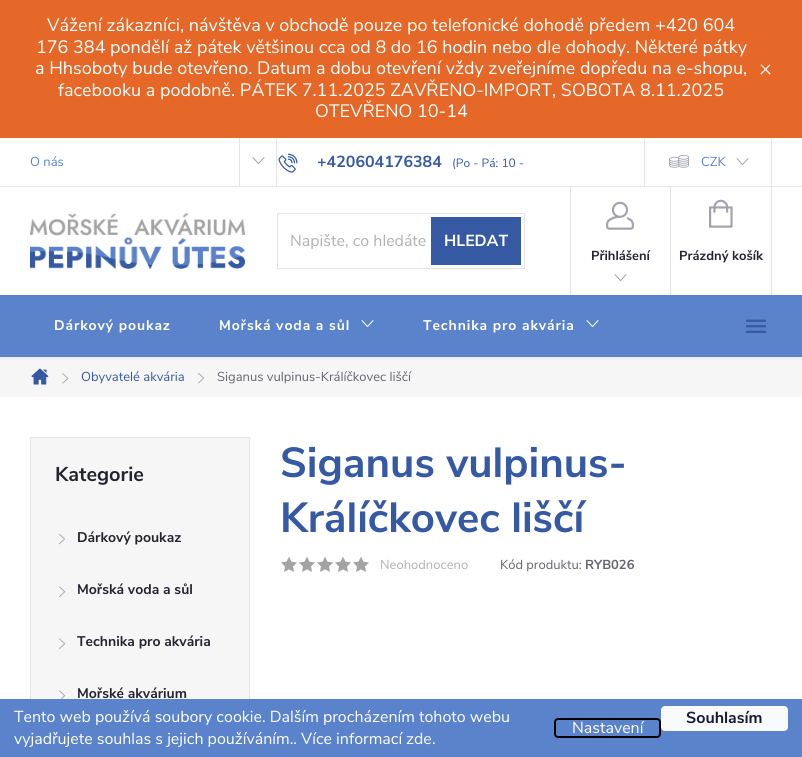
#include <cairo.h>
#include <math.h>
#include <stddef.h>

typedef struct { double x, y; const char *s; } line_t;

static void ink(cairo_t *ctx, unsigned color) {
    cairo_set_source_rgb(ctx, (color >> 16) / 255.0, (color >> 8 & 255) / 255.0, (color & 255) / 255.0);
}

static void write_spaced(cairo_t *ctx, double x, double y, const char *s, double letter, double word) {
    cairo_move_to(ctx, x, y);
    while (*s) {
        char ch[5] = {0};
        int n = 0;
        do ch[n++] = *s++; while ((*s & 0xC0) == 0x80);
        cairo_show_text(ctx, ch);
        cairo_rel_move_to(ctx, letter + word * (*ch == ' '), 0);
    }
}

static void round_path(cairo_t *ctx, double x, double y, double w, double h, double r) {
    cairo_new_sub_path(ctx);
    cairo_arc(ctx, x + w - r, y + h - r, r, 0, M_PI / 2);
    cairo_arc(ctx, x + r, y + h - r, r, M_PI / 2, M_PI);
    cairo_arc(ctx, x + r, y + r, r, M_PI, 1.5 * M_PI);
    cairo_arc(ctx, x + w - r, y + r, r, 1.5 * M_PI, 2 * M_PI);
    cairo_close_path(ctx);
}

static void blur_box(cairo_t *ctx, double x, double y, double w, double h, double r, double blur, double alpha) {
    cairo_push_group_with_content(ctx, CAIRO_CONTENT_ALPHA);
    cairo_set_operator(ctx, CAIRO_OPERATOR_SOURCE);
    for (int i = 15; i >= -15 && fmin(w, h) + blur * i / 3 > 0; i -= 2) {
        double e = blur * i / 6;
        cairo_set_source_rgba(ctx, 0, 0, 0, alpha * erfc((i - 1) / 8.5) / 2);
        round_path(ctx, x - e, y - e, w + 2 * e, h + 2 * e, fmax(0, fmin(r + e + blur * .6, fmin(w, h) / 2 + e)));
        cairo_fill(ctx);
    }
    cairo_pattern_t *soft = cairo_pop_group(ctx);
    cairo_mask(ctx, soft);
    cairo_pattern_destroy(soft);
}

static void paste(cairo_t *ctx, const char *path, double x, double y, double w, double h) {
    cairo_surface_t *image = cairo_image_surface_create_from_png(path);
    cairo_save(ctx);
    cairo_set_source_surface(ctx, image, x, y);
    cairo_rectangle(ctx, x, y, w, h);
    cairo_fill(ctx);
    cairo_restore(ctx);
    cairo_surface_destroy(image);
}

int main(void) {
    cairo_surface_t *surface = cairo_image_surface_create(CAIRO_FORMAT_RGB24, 802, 757);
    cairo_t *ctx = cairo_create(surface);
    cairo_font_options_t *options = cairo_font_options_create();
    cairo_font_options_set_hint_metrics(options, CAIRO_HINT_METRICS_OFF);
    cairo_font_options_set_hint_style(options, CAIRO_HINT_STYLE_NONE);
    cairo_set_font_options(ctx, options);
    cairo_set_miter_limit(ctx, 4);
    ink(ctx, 0xFFFFFF);
    cairo_paint(ctx);
    ink(ctx, 0xE56829);
    cairo_rectangle(ctx, 0, 0, 802, 138);
    cairo_fill(ctx);
    cairo_select_font_face(ctx, "Nunito Sans", CAIRO_FONT_SLANT_NORMAL, CAIRO_FONT_WEIGHT_NORMAL);
    cairo_set_font_size(ctx, 18);
    ink(ctx, 0xFFFFFF);
    {
        static const line_t items[] = {
            {47, 31, "Vážení zákazníci, návštěva v obchodě pouze po telefonické dohodě předem +420 604"},
            {36, 53, "176 384 pondělí až pátek většinou cca od 8 do 16 hodin nebo dle dohody. Některé pátky"},
            {35, 74, "a Hhsoboty bude otevřeno. Datum a dobu otevření vždy zveřejníme dopředu na e-shopu,"},
            {58, 96, "facebooku a podobně. PÁTEK 7.11.2025 ZAVŘENO-IMPORT, SOBOTA 8.11.2025"},
            {315, 117, "OTEVŘENO 10-14"},
        };
        for (size_t i = 0; i < sizeof items / sizeof *items; i++) {
            cairo_move_to(ctx, items[i].x, items[i].y);
            cairo_show_text(ctx, items[i].s);
        }
    }
    cairo_new_path(ctx);
    cairo_move_to(ctx, 769.5, 64.5);
    cairo_line_to(ctx, 770.5, 65);
    cairo_line_to(ctx, 761.5, 74.5);
    cairo_line_to(ctx, 760.5, 73.5);
    cairo_close_path(ctx);
    cairo_fill(ctx);
    cairo_new_path(ctx);
    cairo_move_to(ctx, 761.5, 64.5);
    cairo_line_to(ctx, 770.5, 73.5);
    cairo_line_to(ctx, 769.5, 74.5);
    cairo_line_to(ctx, 760.5, 65);
    cairo_close_path(ctx);
    cairo_fill(ctx);
    ink(ctx, 0xE4E4E4);
    cairo_rectangle(ctx, 0, 186, 802, 1);
    cairo_fill(ctx);
    cairo_set_font_size(ctx, 13);
    ink(ctx, 0x5A83CC);
    cairo_move_to(ctx, 30, 166);
    cairo_show_text(ctx, "O nás");
    ink(ctx, 0xE4E4E4);
    cairo_rectangle(ctx, 276, 138, 1, 48);
    cairo_fill(ctx);
    cairo_rectangle(ctx, 239, 138, 1, 48);
    cairo_fill(ctx);
    paste(ctx, "media/1.png", 252, 157, 13, 7);
    paste(ctx, "media/2.png", 278, 153, 20, 20);
    cairo_select_font_face(ctx, "Nunito Sans", CAIRO_FONT_SLANT_NORMAL, CAIRO_FONT_WEIGHT_BOLD);
    cairo_set_font_size(ctx, 16);
    ink(ctx, 0x3659A4);
    cairo_move_to(ctx, 317, 167);
    cairo_show_text(ctx, "+420604176384");
    cairo_select_font_face(ctx, "Nunito Sans", CAIRO_FONT_SLANT_NORMAL, CAIRO_FONT_WEIGHT_NORMAL);
    cairo_set_font_size(ctx, 12);
    cairo_move_to(ctx, 452, 167);
    cairo_show_text(ctx, "(Po - Pá: 10 -");
    ink(ctx, 0xE4E4E4);
    cairo_rectangle(ctx, 771, 138, 1, 48);
    cairo_fill(ctx);
    cairo_rectangle(ctx, 644, 138, 1, 48);
    cairo_fill(ctx);
    paste(ctx, "media/3.png", 669, 154, 20, 14);
    cairo_set_font_size(ctx, 13);
    ink(ctx, 0x5A83CC);
    cairo_move_to(ctx, 701, 166);
    cairo_show_text(ctx, "CZK");
    paste(ctx, "media/1.png", 736, 158, 13, 7);
    paste(ctx, "media/4.png", 30, 213, 215, 56);
    cairo_rectangle(ctx, 277.5, 213.5, 247, 55);
    ink(ctx, 0xE4E4E4);
    cairo_set_line_width(ctx, 1);
    cairo_stroke(ctx);
    cairo_set_font_size(ctx, 16);
    ink(ctx, 0xB2B2B2);
    cairo_move_to(ctx, 290, 246);
    cairo_show_text(ctx, "Napište, co hledáte");
    ink(ctx, 0x3659A4);
    cairo_rectangle(ctx, 431, 217, 90, 48);
    cairo_fill(ctx);
    cairo_select_font_face(ctx, "Nunito Sans", CAIRO_FONT_SLANT_NORMAL, CAIRO_FONT_WEIGHT_BOLD);
    ink(ctx, 0xFFFFFF);
    cairo_move_to(ctx, 444, 246);
    cairo_show_text(ctx, "HLEDAT");
    ink(ctx, 0xE4E4E4);
    cairo_rectangle(ctx, 570, 187, 1, 108);
    cairo_fill(ctx);
    paste(ctx, "media/5.png", 606, 201, 28, 29);
    cairo_set_font_size(ctx, 13);
    ink(ctx, 0x24242E);
    cairo_move_to(ctx, 591, 260);
    cairo_show_text(ctx, "Přihlášení");
    paste(ctx, "media/1.png", 614, 274, 13, 7);
    ink(ctx, 0xE4E4E4);
    cairo_rectangle(ctx, 771, 187, 1, 108);
    cairo_fill(ctx);
    cairo_rectangle(ctx, 670, 187, 1, 108);
    cairo_fill(ctx);
    paste(ctx, "media/6.png", 709, 199, 24, 29);
    ink(ctx, 0x24242E);
    cairo_move_to(ctx, 679, 260);
    cairo_show_text(ctx, "Prázdný košík");
    ink(ctx, 0xF6F6F6);
    cairo_rectangle(ctx, 0, 357, 802, 40);
    cairo_fill(ctx);
    ink(ctx, 0x000000);
    blur_box(ctx, 0, 297, 802, 62, 0, 1, 0.05);
    ink(ctx, 0x5A83CC);
    cairo_rectangle(ctx, 0, 295, 802, 62);
    cairo_fill(ctx);
    cairo_set_font_size(ctx, 14);
    ink(ctx, 0xFFFFFF);
    write_spaced(ctx, 54, 330, "Dárkový poukaz", 0.9, 0);
    write_spaced(ctx, 219, 330, "Mořská voda a sůl", 0.9, 0);
    paste(ctx, "media/7.png", 361, 320, 13, 8);
    write_spaced(ctx, 423, 330, "Technika pro akvária", 0.9, 0);
    paste(ctx, "media/7.png", 586, 320, 13, 8);
    paste(ctx, "media/8.png", 746, 319, 20, 14);
    paste(ctx, "media/9.png", 31, 368, 18, 17);
    paste(ctx, "media/10.png", 62, 373, 7, 11);
    cairo_select_font_face(ctx, "Nunito Sans", CAIRO_FONT_SLANT_NORMAL, CAIRO_FONT_WEIGHT_NORMAL);
    cairo_set_font_size(ctx, 13);
    ink(ctx, 0x3659A4);
    cairo_move_to(ctx, 81, 381);
    cairo_show_text(ctx, "Obyvatelé akvária");
    paste(ctx, "media/11.png", 198, 372, 6, 12);
    ink(ctx, 0x656570);
    cairo_move_to(ctx, 217, 381);
    cairo_show_text(ctx, "Siganus vulpinus-Králíčkovec liščí");
    ink(ctx, 0xF6F6F6);
    cairo_rectangle(ctx, 31, 438, 218, 261);
    cairo_fill(ctx);
    cairo_rectangle(ctx, 30.5, 437.5, 219, 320);
    ink(ctx, 0xE4E4E4);
    cairo_stroke(ctx);
    cairo_select_font_face(ctx, "Nunito Sans", CAIRO_FONT_SLANT_NORMAL, CAIRO_FONT_WEIGHT_BOLD);
    cairo_set_font_size(ctx, 20);
    ink(ctx, 0x24242E);
    cairo_move_to(ctx, 55, 481);
    cairo_show_text(ctx, "Kategorie");
    paste(ctx, "media/12.png", 58, 533, 7, 12);
    cairo_set_font_size(ctx, 14);
    cairo_move_to(ctx, 77, 542);
    cairo_show_text(ctx, "Dárkový poukaz");
    paste(ctx, "media/13.png", 59, 586, 7, 11);
    cairo_move_to(ctx, 77, 594);
    cairo_show_text(ctx, "Mořská voda a sůl");
    paste(ctx, "media/13.png", 59, 638, 7, 11);
    cairo_move_to(ctx, 77, 646);
    cairo_show_text(ctx, "Technika pro akvária");
    paste(ctx, "media/14.png", 59, 690, 7, 9);
    cairo_move_to(ctx, 77, 698);
    cairo_show_text(ctx, "Mořské akvárium");
    cairo_set_font_size(ctx, 42);
    ink(ctx, 0x3659A4);
    cairo_move_to(ctx, 280, 477);
    cairo_show_text(ctx, "Siganus vulpinus-");
    cairo_move_to(ctx, 280, 532);
    cairo_show_text(ctx, "Králíčkovec liščí");
    paste(ctx, "media/15.png", 281, 557, 16, 15);
    paste(ctx, "media/15.png", 299, 557, 16, 15);
    paste(ctx, "media/15.png", 317, 557, 16, 15);
    paste(ctx, "media/15.png", 335, 557, 16, 15);
    paste(ctx, "media/15.png", 353, 557, 16, 15);
    cairo_select_font_face(ctx, "Nunito Sans", CAIRO_FONT_SLANT_NORMAL, CAIRO_FONT_WEIGHT_NORMAL);
    cairo_set_font_size(ctx, 13);
    ink(ctx, 0xB2B2B2);
    cairo_move_to(ctx, 380, 569);
    cairo_show_text(ctx, "Neohodnoceno");
    ink(ctx, 0x656570);
    cairo_move_to(ctx, 500, 569);
    cairo_show_text(ctx, "Kód produktu:");
    cairo_select_font_face(ctx, "Nunito Sans", CAIRO_FONT_SLANT_NORMAL, CAIRO_FONT_WEIGHT_BOLD);
    cairo_move_to(ctx, 585, 569);
    cairo_show_text(ctx, "RYB026");
    ink(ctx, 0x5A83CC);
    cairo_rectangle(ctx, 0, 699, 802, 58);
    cairo_fill(ctx);
    cairo_select_font_face(ctx, "Nunito Sans", CAIRO_FONT_SLANT_NORMAL, CAIRO_FONT_WEIGHT_NORMAL);
    cairo_set_font_size(ctx, 16);
    ink(ctx, 0xFFFFFF);
    cairo_move_to(ctx, 14, 722);
    cairo_show_text(ctx, "Tento web používá soubory cookie. Dalším procházením tohoto webu");
    cairo_move_to(ctx, 14, 744);
    cairo_show_text(ctx, "vyjadřujete souhlas s jejich používáním.. Více informací");
    ink(ctx, 0xF8FAFB);
    cairo_move_to(ctx, 406, 744);
    cairo_show_text(ctx, "zde");
    ink(ctx, 0xFFFFFF);
    cairo_move_to(ctx, 432, 744);
    cairo_show_text(ctx, ".");
    round_path(ctx, 555, 719, 105, 18, 3);
    ink(ctx, 0x000000);
    cairo_set_line_width(ctx, 2);
    cairo_stroke(ctx);
    ink(ctx, 0xFFFFFF);
    cairo_move_to(ctx, 572, 733);
    cairo_show_text(ctx, "Nastavení");
    ink(ctx, 0xF8FAFB);
    round_path(ctx, 661, 706, 127, 25, 4);
    cairo_fill(ctx);
    cairo_select_font_face(ctx, "Nunito Sans", CAIRO_FONT_SLANT_NORMAL, CAIRO_FONT_WEIGHT_BOLD);
    ink(ctx, 0x1A1937);
    cairo_move_to(ctx, 686, 723);
    cairo_show_text(ctx, "Souhlasím");
    cairo_surface_write_to_png(surface, "image.png");
    cairo_font_options_destroy(options);
    cairo_destroy(ctx);
    cairo_surface_destroy(surface);
    return 0;
}
